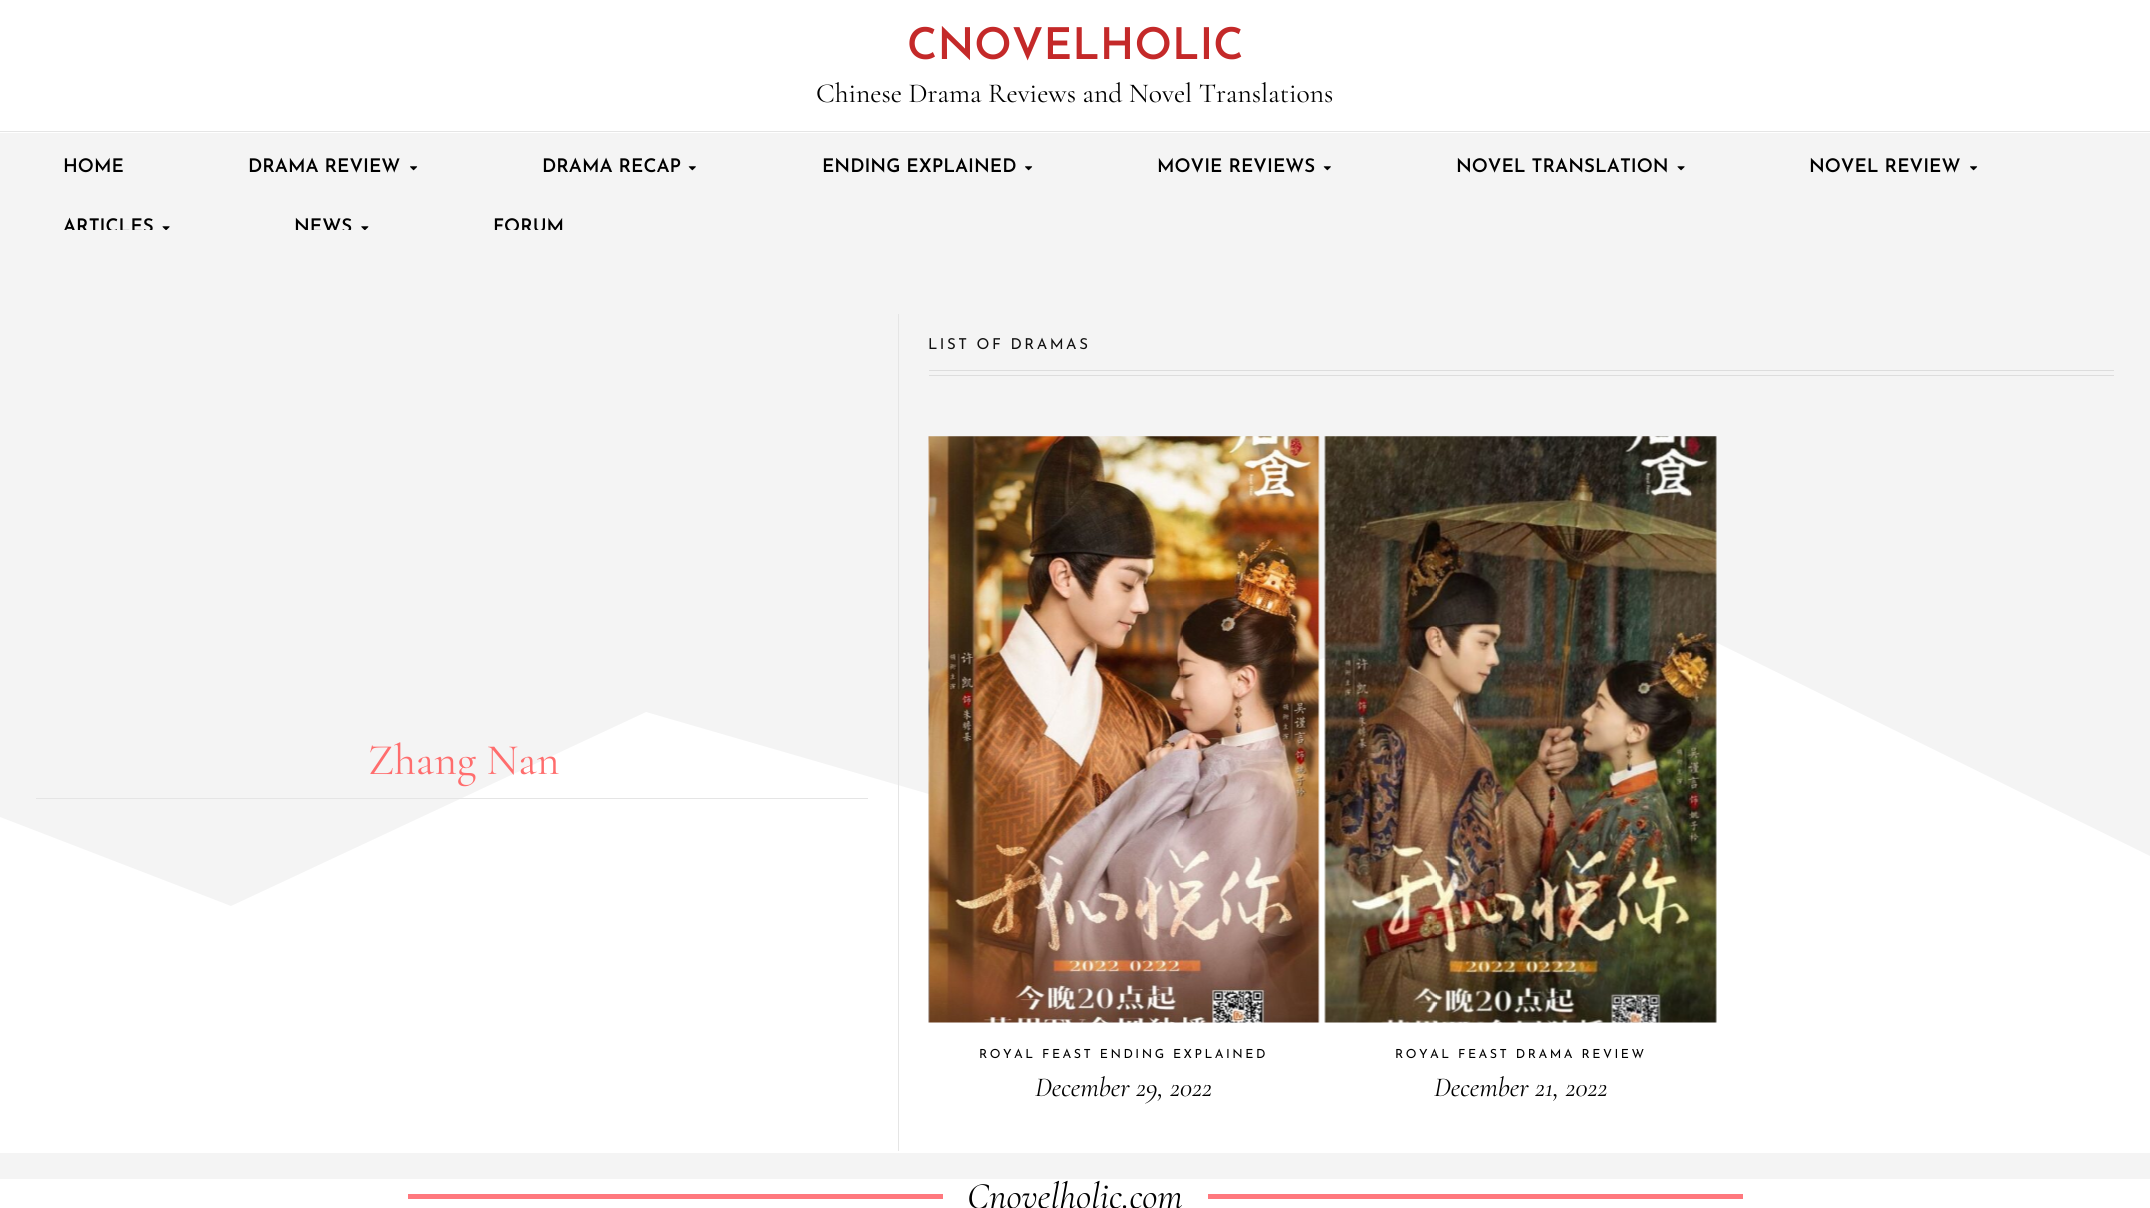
#include <cairo.h>
#include <math.h>
#include <stddef.h>

typedef struct { double x, y, w, h; unsigned color; } box_t;

static void ink(cairo_t *ctx, unsigned color) {
    cairo_set_source_rgb(ctx, (color >> 16) / 255.0, (color >> 8 & 255) / 255.0, (color & 255) / 255.0);
}

static void write_spaced(cairo_t *ctx, double x, double y, const char *s, double letter, double word) {
    cairo_move_to(ctx, x, y);
    while (*s) {
        char ch[5] = {0};
        int n = 0;
        do ch[n++] = *s++; while ((*s & 0xC0) == 0x80);
        cairo_show_text(ctx, ch);
        cairo_rel_move_to(ctx, letter + word * (*ch == ' '), 0);
    }
}

static void paste(cairo_t *ctx, const char *path, double x, double y, double w, double h) {
    cairo_surface_t *image = cairo_image_surface_create_from_png(path);
    cairo_save(ctx);
    cairo_set_source_surface(ctx, image, x, y);
    cairo_rectangle(ctx, x, y, w, h);
    cairo_fill(ctx);
    cairo_restore(ctx);
    cairo_surface_destroy(image);
}

int main(void) {
    cairo_surface_t *surface = cairo_image_surface_create(CAIRO_FORMAT_RGB24, 2150, 1208);
    cairo_t *ctx = cairo_create(surface);
    cairo_font_options_t *options = cairo_font_options_create();
    cairo_font_options_set_hint_metrics(options, CAIRO_HINT_METRICS_OFF);
    cairo_font_options_set_hint_style(options, CAIRO_HINT_STYLE_NONE);
    cairo_set_font_options(ctx, options);
    cairo_set_miter_limit(ctx, 4);
    ink(ctx, 0xFFFFFF);
    cairo_paint(ctx);
    cairo_select_font_face(ctx, "Josefin Sans SemiBold", CAIRO_FONT_SLANT_NORMAL, CAIRO_FONT_WEIGHT_NORMAL);
    cairo_set_font_size(ctx, 43.75);
    ink(ctx, 0xC42929);
    cairo_move_to(ctx, 907, 59);
    cairo_show_text(ctx, "CNOVELHOLIC");
    cairo_select_font_face(ctx, "Cormorant Garamond", CAIRO_FONT_SLANT_NORMAL, CAIRO_FONT_WEIGHT_NORMAL);
    cairo_set_font_size(ctx, 27.5);
    ink(ctx, 0x000000);
    cairo_move_to(ctx, 816, 102);
    cairo_show_text(ctx, "Chinese Drama Reviews and Novel Translations");
    {
        static const box_t items[] = {
            {0, 131, 2150, 1, 0xE5E5E5},
            {0, 133, 2150, 97, 0xF4F4F4},
            {0, 313, 2150, 1, 0xE5E5E5},
        };
        for (size_t i = 0; i < sizeof items / sizeof *items; i++) {
            ink(ctx, items[i].color);
            cairo_rectangle(ctx, items[i].x, items[i].y, items[i].w, items[i].h);
            cairo_fill(ctx);
        }
    }
    cairo_select_font_face(ctx, "Josefin Sans SemiBold", CAIRO_FONT_SLANT_NORMAL, CAIRO_FONT_WEIGHT_NORMAL);
    cairo_set_font_size(ctx, 18.75);
    ink(ctx, 0x000000);
    cairo_move_to(ctx, 63, 172);
    cairo_show_text(ctx, "HOME");
    cairo_move_to(ctx, 248, 172);
    cairo_show_text(ctx, "DRAMA REVIEW");
    paste(ctx, "media/1.png", 410, 166, 8, 5);
    cairo_move_to(ctx, 542, 172);
    cairo_show_text(ctx, "DRAMA RECAP");
    paste(ctx, "media/2.png", 688, 166, 8, 5);
    cairo_move_to(ctx, 822, 172);
    cairo_show_text(ctx, "ENDING EXPLAINED");
    paste(ctx, "media/1.png", 1025, 166, 8, 5);
    cairo_move_to(ctx, 1157, 172);
    cairo_show_text(ctx, "MOVIE REVIEWS");
    paste(ctx, "media/2.png", 1323, 166, 8, 5);
    cairo_move_to(ctx, 1456, 172);
    cairo_show_text(ctx, "NOVEL TRANSLATION");
    paste(ctx, "media/3.png", 1677, 166, 8, 5);
    cairo_move_to(ctx, 1809, 172);
    cairo_show_text(ctx, "NOVEL REVIEW");
    paste(ctx, "media/1.png", 1970, 166, 8, 5);
    cairo_move_to(ctx, 63, 232);
    cairo_show_text(ctx, "ARTICLES");
    paste(ctx, "media/3.png", 162, 226, 8, 5);
    cairo_move_to(ctx, 294, 232);
    cairo_show_text(ctx, "NEWS");
    paste(ctx, "media/4.png", 361, 226, 8, 5);
    cairo_move_to(ctx, 493, 232);
    cairo_show_text(ctx, "FORUM");
    paste(ctx, "media/5.png", 1064, 273, 23, 23);
    cairo_select_font_face(ctx, "Open Sans", CAIRO_FONT_SLANT_NORMAL, CAIRO_FONT_WEIGHT_NORMAL);
    cairo_set_font_size(ctx, 15);
    ink(ctx, 0x747474);
    cairo_move_to(ctx, 36, 329);
    cairo_show_text(ctx, "Tags");
    paste(ctx, "media/6.png", 75, 321, 4, 7);
    cairo_move_to(ctx, 84, 329);
    cairo_show_text(ctx, "Zhang Nan");
    ink(ctx, 0xF4F4F4);
    cairo_new_path(ctx);
    cairo_move_to(ctx, 0, 230);
    cairo_line_to(ctx, 0, 817);
    cairo_line_to(ctx, 231, 906);
    cairo_line_to(ctx, 646, 712);
    cairo_line_to(ctx, 946, 799);
    cairo_line_to(ctx, 1565, 568);
    cairo_line_to(ctx, 2150, 856);
    cairo_line_to(ctx, 2150, 230);
    cairo_close_path(ctx);
    cairo_fill(ctx);
    cairo_select_font_face(ctx, "Cormorant Garamond", CAIRO_FONT_SLANT_NORMAL, CAIRO_FONT_WEIGHT_NORMAL);
    cairo_set_font_size(ctx, 43.75);
    ink(ctx, 0xFF6D6D);
    cairo_move_to(ctx, 368, 774);
    cairo_show_text(ctx, "Zhang Nan");
    ink(ctx, 0xE5E5E5);
    cairo_rectangle(ctx, 36, 798, 832, 1);
    cairo_fill(ctx);
    cairo_rectangle(ctx, 898, 314, 1, 837);
    cairo_fill(ctx);
    cairo_select_font_face(ctx, "Josefin Sans", CAIRO_FONT_SLANT_NORMAL, CAIRO_FONT_WEIGHT_NORMAL);
    cairo_set_font_size(ctx, 15);
    ink(ctx, 0x111111);
    write_spaced(ctx, 928, 349, "LIST OF DRAMAS", 2.5, 0);
    ink(ctx, 0xDDDDDD);
    cairo_rectangle(ctx, 929, 370, 1185, 1);
    cairo_fill(ctx);
    cairo_rectangle(ctx, 929, 375, 1185, 1);
    cairo_fill(ctx);
    paste(ctx, "media/7.png", 928, 436, 392, 587);
    cairo_set_font_size(ctx, 12.5);
    ink(ctx, 0x000000);
    write_spaced(ctx, 979, 1058, "ROYAL FEAST ENDING EXPLAINED", 2.5, 0);
    cairo_select_font_face(ctx, "Cormorant Garamond Light", CAIRO_FONT_SLANT_ITALIC, CAIRO_FONT_WEIGHT_NORMAL);
    cairo_set_font_size(ctx, 27.5);
    cairo_move_to(ctx, 1035, 1096);
    cairo_show_text(ctx, "December 29, 2022");
    paste(ctx, "media/8.png", 1324, 436, 393, 587);
    cairo_select_font_face(ctx, "Josefin Sans", CAIRO_FONT_SLANT_NORMAL, CAIRO_FONT_WEIGHT_NORMAL);
    cairo_set_font_size(ctx, 12.5);
    write_spaced(ctx, 1395, 1058, "ROYAL FEAST DRAMA REVIEW", 2.5, 0);
    cairo_select_font_face(ctx, "Cormorant Garamond Light", CAIRO_FONT_SLANT_ITALIC, CAIRO_FONT_WEIGHT_NORMAL);
    cairo_set_font_size(ctx, 27.5);
    cairo_move_to(ctx, 1434, 1096);
    cairo_show_text(ctx, "December 21, 2022");
    ink(ctx, 0xF4F4F4);
    cairo_rectangle(ctx, 0, 1153, 2150, 26);
    cairo_fill(ctx);
    ink(ctx, 0xFF787E);
    cairo_rectangle(ctx, 408, 1194, 535, 5);
    cairo_fill(ctx);
    cairo_set_font_size(ctx, 37.5);
    ink(ctx, 0x000000);
    cairo_move_to(ctx, 967, 1208);
    cairo_show_text(ctx, "Cnovelholic.com");
    ink(ctx, 0xFF787E);
    cairo_rectangle(ctx, 1208, 1194, 535, 5);
    cairo_fill(ctx);
    cairo_surface_write_to_png(surface, "image.png");
    cairo_font_options_destroy(options);
    cairo_destroy(ctx);
    cairo_surface_destroy(surface);
    return 0;
}
